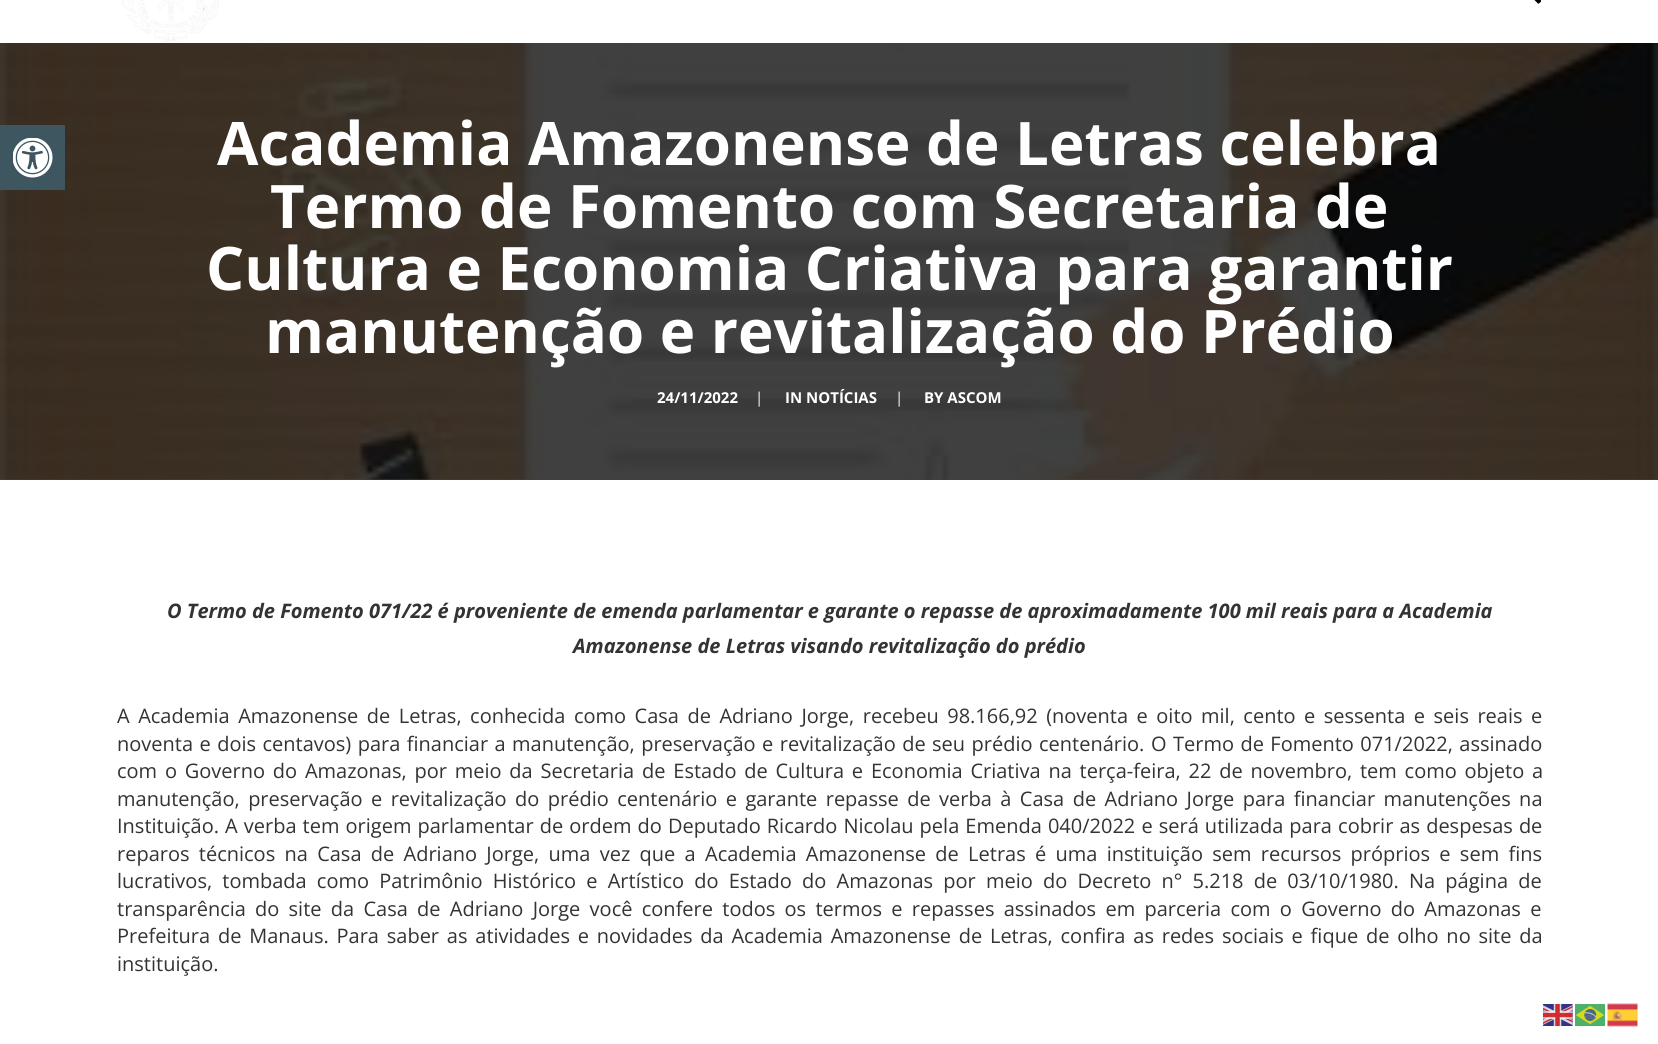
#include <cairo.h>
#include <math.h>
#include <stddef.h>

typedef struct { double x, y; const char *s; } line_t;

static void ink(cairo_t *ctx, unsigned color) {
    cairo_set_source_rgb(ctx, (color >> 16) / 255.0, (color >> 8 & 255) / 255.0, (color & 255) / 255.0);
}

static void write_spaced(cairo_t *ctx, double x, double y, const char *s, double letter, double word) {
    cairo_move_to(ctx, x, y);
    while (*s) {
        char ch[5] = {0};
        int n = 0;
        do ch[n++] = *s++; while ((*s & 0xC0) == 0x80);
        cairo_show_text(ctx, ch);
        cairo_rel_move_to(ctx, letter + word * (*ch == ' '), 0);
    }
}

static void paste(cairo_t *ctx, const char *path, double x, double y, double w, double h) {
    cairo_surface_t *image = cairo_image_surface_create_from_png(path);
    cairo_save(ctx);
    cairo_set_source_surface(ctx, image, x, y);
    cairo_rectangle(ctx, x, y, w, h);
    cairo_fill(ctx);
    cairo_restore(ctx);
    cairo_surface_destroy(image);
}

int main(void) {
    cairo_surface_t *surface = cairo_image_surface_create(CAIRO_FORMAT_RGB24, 1658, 1044);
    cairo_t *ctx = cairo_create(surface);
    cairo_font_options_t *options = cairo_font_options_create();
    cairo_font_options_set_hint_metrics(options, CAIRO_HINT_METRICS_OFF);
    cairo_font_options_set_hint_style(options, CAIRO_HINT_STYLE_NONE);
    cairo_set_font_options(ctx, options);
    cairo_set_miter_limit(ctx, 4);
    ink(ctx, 0xFFFFFF);
    cairo_paint(ctx);
    ink(ctx, 0x404040);
    cairo_rectangle(ctx, 0, 479, 1658, 1);
    cairo_fill(ctx);
    paste(ctx, "media/4.png", 0, 43, 1658, 437);
    ink(ctx, 0x3E5660);
    cairo_rectangle(ctx, 0, 125, 65, 65);
    cairo_fill(ctx);
    paste(ctx, "media/1.png", 13, 138, 40, 40);
    paste(ctx, "media/2.png", 121, 0, 98, 42);
    paste(ctx, "media/3.png", 1534, 0, 7, 4);
    cairo_select_font_face(ctx, "Open Sans", CAIRO_FONT_SLANT_NORMAL, CAIRO_FONT_WEIGHT_BOLD);
    cairo_set_font_size(ctx, 60);
    ink(ctx, 0xFFFFFF);
    {
        static const line_t items[] = {
            {217, 165, "Academia Amazonense de Letras celebra"},
            {270, 228, "Termo de Fomento com Secretaria de"},
            {206, 290, "Cultura e Economia Criativa para garantir"},
            {265, 353, "manutenção e revitalização do Prédio"},
        };
        for (size_t i = 0; i < sizeof items / sizeof *items; i++) {
            cairo_move_to(ctx, items[i].x, items[i].y);
            cairo_show_text(ctx, items[i].s);
        }
    }
    cairo_set_font_size(ctx, 15);
    cairo_move_to(ctx, 657, 403);
    cairo_show_text(ctx, "24/11/2022");
    cairo_select_font_face(ctx, "Open Sans", CAIRO_FONT_SLANT_NORMAL, CAIRO_FONT_WEIGHT_NORMAL);
    cairo_move_to(ctx, 755, 403);
    cairo_show_text(ctx, "|");
    cairo_select_font_face(ctx, "Open Sans", CAIRO_FONT_SLANT_NORMAL, CAIRO_FONT_WEIGHT_BOLD);
    cairo_move_to(ctx, 785, 403);
    cairo_show_text(ctx, "IN NOTÍCIAS");
    cairo_select_font_face(ctx, "Open Sans", CAIRO_FONT_SLANT_NORMAL, CAIRO_FONT_WEIGHT_NORMAL);
    cairo_move_to(ctx, 895, 403);
    cairo_show_text(ctx, "|");
    cairo_select_font_face(ctx, "Open Sans", CAIRO_FONT_SLANT_NORMAL, CAIRO_FONT_WEIGHT_BOLD);
    cairo_move_to(ctx, 924, 403);
    cairo_show_text(ctx, "BY ASCOM");
    cairo_select_font_face(ctx, "Open Sans", CAIRO_FONT_SLANT_ITALIC, CAIRO_FONT_WEIGHT_BOLD);
    cairo_set_font_size(ctx, 20);
    ink(ctx, 0x333333);
    cairo_move_to(ctx, 167, 618);
    cairo_show_text(ctx, "O Termo de Fomento 071/22 é proveniente de emenda parlamentar e garante o repasse de aproximadamente 100 mil reais para a Academia");
    cairo_move_to(ctx, 573, 653);
    cairo_show_text(ctx, "Amazonense de Letras visando revitalização do prédio");
    cairo_select_font_face(ctx, "Open Sans", CAIRO_FONT_SLANT_NORMAL, CAIRO_FONT_WEIGHT_NORMAL);
    write_spaced(ctx, 117, 723, "A Academia Amazonense de Letras, conhecida como Casa de Adriano Jorge, recebeu 98.166,92 (noventa e oito mil, cento e sessenta e seis reais e", 0, 3.3);
    write_spaced(ctx, 117, 751, "noventa e dois centavos) para financiar a manutenção, preservação e revitalização de seu prédio centenário.", 0, 1.25);
    write_spaced(ctx, 1151, 751, "O Termo de Fomento 071/2022, assinado", 0, 1.25);
    write_spaced(ctx, 117, 778, "com o Governo do Amazonas, por meio da Secretaria de Estado de Cultura e Economia Criativa na terça-feira, 22 de novembro, tem como objeto a", 0, 2.6);
    write_spaced(ctx, 117, 806, "manutenção, preservação e revitalização do prédio centenário e garante repasse de verba à Casa de Adriano Jorge para financiar manutenções na", 0, 3.25);
    cairo_move_to(ctx, 117, 833);
    cairo_show_text(ctx, "Instituição.");
    write_spaced(ctx, 225, 833, "A verba tem origem parlamentar de ordem do Deputado Ricardo Nicolau pela Emenda 040/2022 e será utilizada para cobrir as despesas de", 0, 0.9);
    write_spaced(ctx, 117, 861, "reparos técnicos na Casa de Adriano Jorge, uma vez que a Academia Amazonense de Letras é uma instituição sem recursos próprios e sem fins", 0, 4.1);
    write_spaced(ctx, 117, 888, "lucrativos, tombada como Patrimônio Histórico e Artístico do Estado do Amazonas por meio do Decreto n° 5.218 de 03/10/1980.", 0, 5);
    write_spaced(ctx, 1409, 888, "Na página de", 0, 5);
    cairo_move_to(ctx, 117, 916);
    cairo_show_text(ctx, "transparência");
    write_spaced(ctx, 255, 916, "do site da Casa de Adriano Jorge você confere todos os termos e repasses assinados em parceria com o Governo do Amazonas e", 0, 4.1);
    write_spaced(ctx, 117, 943, "Prefeitura de Manaus. Para saber as atividades e novidades da Academia Amazonense de Letras, confira as redes sociais e fique de olho no site da", 0, 2.6);
    cairo_move_to(ctx, 117, 971);
    cairo_show_text(ctx, "instituição.");
    paste(ctx, "media/5.png", 1543, 1004, 30, 22);
    paste(ctx, "media/6.png", 1575, 1004, 30, 22);
    paste(ctx, "media/7.png", 1607, 1003, 31, 24);
    cairo_surface_write_to_png(surface, "image.png");
    cairo_font_options_destroy(options);
    cairo_destroy(ctx);
    cairo_surface_destroy(surface);
    return 0;
}
